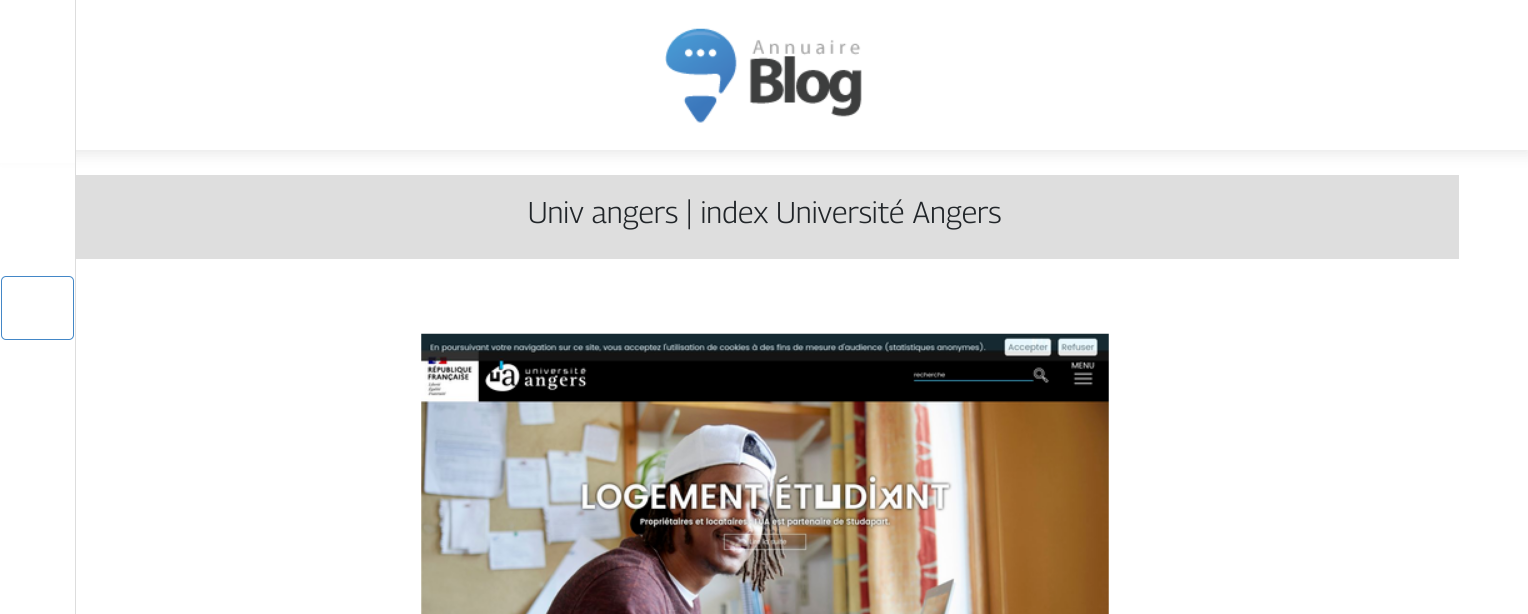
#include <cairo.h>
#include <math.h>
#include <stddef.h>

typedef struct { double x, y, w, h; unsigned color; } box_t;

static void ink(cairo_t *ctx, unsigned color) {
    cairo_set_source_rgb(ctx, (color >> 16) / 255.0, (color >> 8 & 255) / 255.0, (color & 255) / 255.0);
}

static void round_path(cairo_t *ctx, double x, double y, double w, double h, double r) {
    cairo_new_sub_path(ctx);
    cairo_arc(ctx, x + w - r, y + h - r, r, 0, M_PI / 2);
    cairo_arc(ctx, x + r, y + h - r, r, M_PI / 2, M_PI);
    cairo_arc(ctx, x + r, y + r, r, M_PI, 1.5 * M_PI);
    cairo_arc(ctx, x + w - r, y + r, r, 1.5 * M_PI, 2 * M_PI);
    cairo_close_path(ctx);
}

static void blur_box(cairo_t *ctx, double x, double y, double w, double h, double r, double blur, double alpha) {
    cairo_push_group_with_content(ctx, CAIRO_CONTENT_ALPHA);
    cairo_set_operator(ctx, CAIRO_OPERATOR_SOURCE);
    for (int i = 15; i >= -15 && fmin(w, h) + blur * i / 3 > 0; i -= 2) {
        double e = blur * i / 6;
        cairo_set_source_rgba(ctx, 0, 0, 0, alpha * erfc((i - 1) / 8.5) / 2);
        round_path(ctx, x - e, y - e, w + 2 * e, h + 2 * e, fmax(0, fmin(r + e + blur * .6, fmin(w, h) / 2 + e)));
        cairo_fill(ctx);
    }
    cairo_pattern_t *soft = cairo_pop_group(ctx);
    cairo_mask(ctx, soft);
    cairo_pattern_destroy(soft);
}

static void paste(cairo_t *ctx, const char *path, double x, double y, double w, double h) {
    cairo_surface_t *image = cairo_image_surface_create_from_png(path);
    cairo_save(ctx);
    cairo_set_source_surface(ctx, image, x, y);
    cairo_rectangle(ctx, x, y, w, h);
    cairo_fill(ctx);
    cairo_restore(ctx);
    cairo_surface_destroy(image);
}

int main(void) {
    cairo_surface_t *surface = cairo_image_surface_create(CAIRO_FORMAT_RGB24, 1528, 614);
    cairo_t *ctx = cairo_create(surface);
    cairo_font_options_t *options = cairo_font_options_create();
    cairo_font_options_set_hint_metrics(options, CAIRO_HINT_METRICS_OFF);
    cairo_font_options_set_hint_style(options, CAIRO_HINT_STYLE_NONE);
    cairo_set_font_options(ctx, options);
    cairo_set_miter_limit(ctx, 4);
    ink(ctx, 0xFFFFFF);
    cairo_paint(ctx);
    ink(ctx, 0xDEDEDE);
    cairo_rectangle(ctx, 76, 175, 1383, 84);
    cairo_fill(ctx);
    ink(ctx, 0x000000);
    blur_box(ctx, 0, 3, 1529, 150, 0, 8, 0.1);
    {
        static const box_t items[] = {
            {76, 0, 1452, 150, 0xFFFFFF},
            {0, 0, 75, 163, 0xFFFFFF},
            {75, 0, 1, 614, 0xDDDDDD},
        };
        for (size_t i = 0; i < sizeof items / sizeof *items; i++) {
            ink(ctx, items[i].color);
            cairo_rectangle(ctx, items[i].x, items[i].y, items[i].w, items[i].h);
            cairo_fill(ctx);
        }
    }
    round_path(ctx, 1.5, 276.5, 72, 63, 4.5);
    ink(ctx, 0x4387C7);
    cairo_set_line_width(ctx, 1);
    cairo_stroke(ctx);
    paste(ctx, "media/1.png", 665, 28, 197, 95);
    cairo_select_font_face(ctx, "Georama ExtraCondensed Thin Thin", CAIRO_FONT_SLANT_NORMAL, CAIRO_FONT_WEIGHT_NORMAL);
    cairo_set_font_size(ctx, 30);
    ink(ctx, 0x212529);
    cairo_move_to(ctx, 528, 223);
    cairo_show_text(ctx, "Univ angers | index Université Angers");
    paste(ctx, "media/2.png", 421, 333, 688, 281);
    cairo_surface_write_to_png(surface, "image.png");
    cairo_font_options_destroy(options);
    cairo_destroy(ctx);
    cairo_surface_destroy(surface);
    return 0;
}
